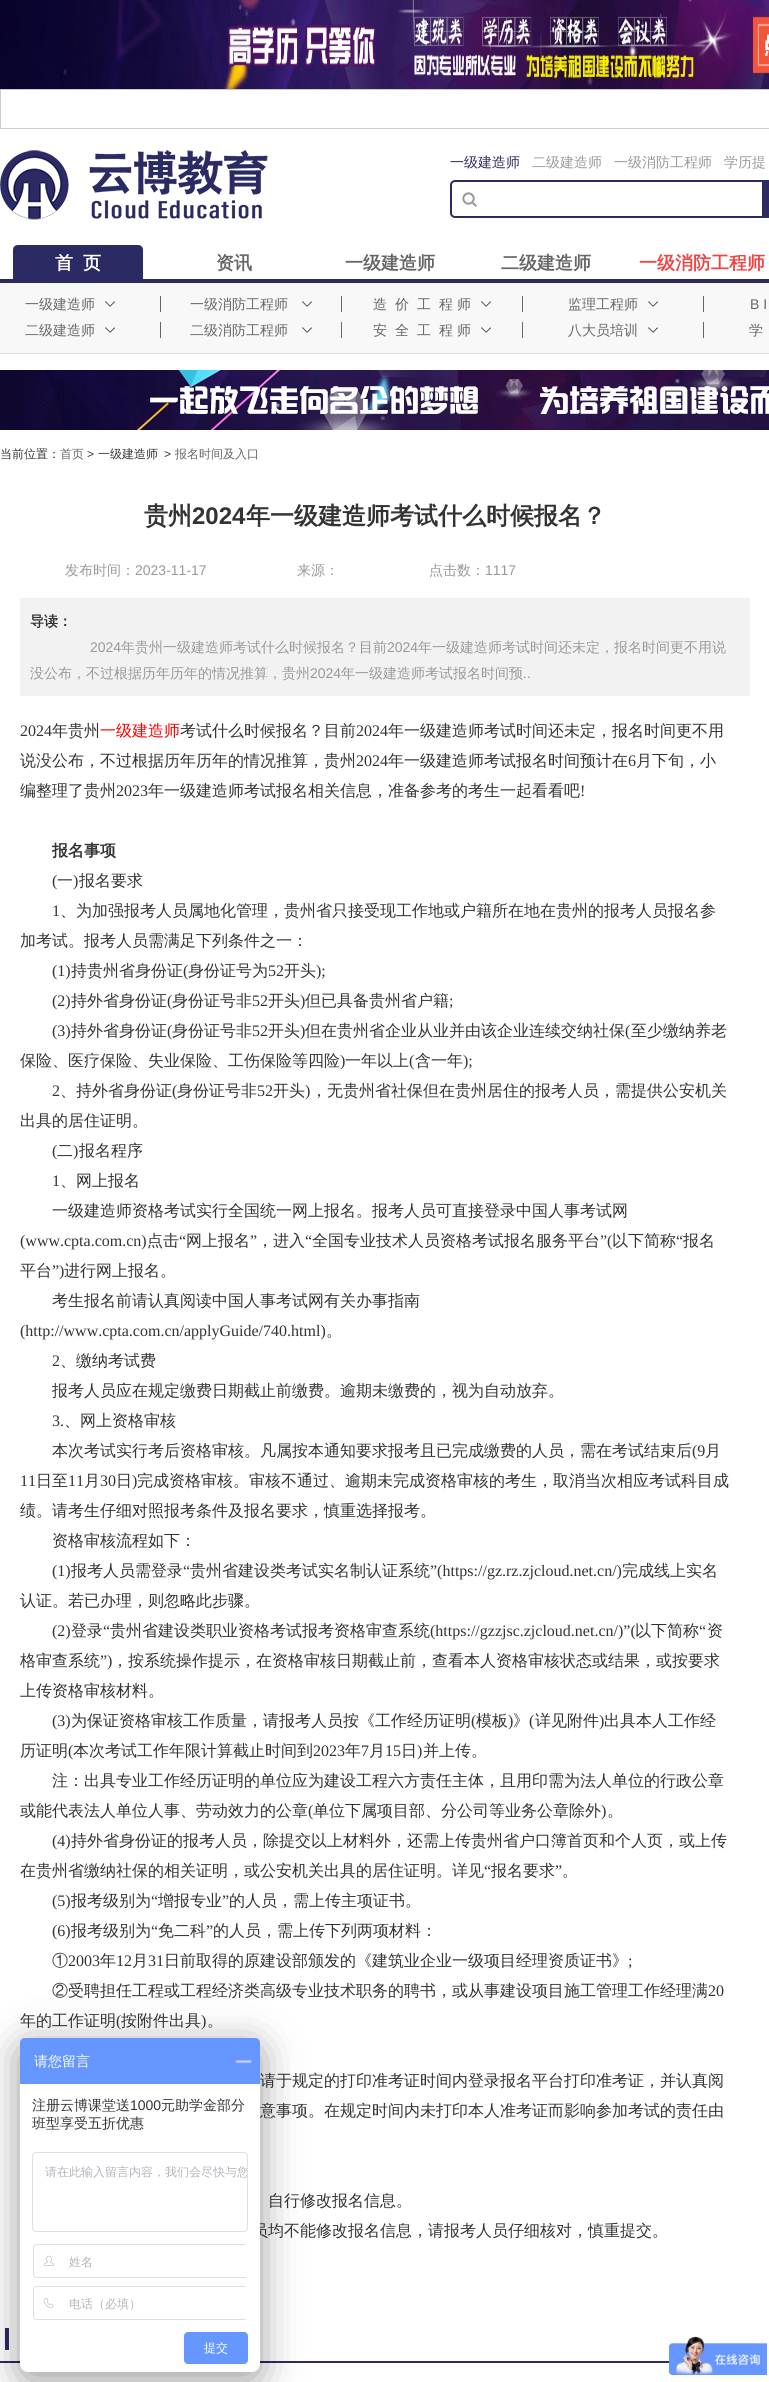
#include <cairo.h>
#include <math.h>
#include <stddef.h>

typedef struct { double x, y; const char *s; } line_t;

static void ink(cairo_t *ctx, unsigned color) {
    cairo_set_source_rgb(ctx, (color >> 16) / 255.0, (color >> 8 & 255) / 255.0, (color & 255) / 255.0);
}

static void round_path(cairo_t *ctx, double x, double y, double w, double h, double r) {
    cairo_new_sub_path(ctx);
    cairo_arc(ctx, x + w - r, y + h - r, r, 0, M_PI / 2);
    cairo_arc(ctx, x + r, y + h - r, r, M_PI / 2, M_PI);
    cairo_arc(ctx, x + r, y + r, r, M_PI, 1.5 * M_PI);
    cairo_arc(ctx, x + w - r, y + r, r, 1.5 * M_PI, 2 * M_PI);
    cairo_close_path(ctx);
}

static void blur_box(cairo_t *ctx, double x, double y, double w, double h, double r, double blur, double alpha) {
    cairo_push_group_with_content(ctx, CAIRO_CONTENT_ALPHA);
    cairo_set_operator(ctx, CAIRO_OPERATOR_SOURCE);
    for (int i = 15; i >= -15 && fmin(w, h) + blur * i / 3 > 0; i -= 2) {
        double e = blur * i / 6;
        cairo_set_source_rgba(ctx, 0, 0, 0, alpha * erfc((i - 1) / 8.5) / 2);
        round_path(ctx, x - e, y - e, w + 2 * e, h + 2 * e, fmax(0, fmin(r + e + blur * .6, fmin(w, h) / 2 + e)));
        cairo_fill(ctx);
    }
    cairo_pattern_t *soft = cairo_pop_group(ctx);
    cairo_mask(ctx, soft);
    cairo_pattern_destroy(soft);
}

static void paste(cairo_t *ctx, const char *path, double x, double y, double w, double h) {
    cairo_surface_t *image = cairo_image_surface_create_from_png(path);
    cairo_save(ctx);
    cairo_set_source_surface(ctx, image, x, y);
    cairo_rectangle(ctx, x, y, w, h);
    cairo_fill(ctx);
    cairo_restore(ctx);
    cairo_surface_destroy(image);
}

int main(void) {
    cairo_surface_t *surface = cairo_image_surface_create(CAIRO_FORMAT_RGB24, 769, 2382);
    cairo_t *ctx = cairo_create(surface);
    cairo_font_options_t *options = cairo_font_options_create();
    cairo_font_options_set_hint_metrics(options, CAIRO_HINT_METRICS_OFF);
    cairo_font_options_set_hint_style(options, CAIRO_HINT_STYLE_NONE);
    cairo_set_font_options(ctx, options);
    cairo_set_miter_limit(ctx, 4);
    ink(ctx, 0xFFFFFF);
    cairo_paint(ctx);
    paste(ctx, "media/1.png", 0, 0, 769, 89);
    cairo_rectangle(ctx, 0.5, 89.5, 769, 39);
    ink(ctx, 0xCCCCCC);
    cairo_set_line_width(ctx, 1);
    cairo_stroke(ctx);
    paste(ctx, "media/2.png", 0, 150, 268, 70);
    cairo_select_font_face(ctx, "WenQuanYi Zen Hei Medium", CAIRO_FONT_SLANT_NORMAL, CAIRO_FONT_WEIGHT_NORMAL);
    cairo_set_font_size(ctx, 14);
    ink(ctx, 0x2C2A62);
    cairo_move_to(ctx, 450, 167);
    cairo_show_text(ctx, "一级建造师");
    ink(ctx, 0x999999);
    {
        static const line_t items[] = {
            {532, 167, "二级建造师"},
            {614, 167, "一级消防工程师"},
            {724, 167, "学历提"},
        };
        for (size_t i = 0; i < sizeof items / sizeof *items; i++) {
            cairo_move_to(ctx, items[i].x, items[i].y);
            cairo_show_text(ctx, items[i].s);
        }
    }
    round_path(ctx, 451, 181, 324, 36, 4);
    ink(ctx, 0x2C2A62);
    cairo_set_line_width(ctx, 2);
    cairo_stroke(ctx);
    paste(ctx, "media/3.png", 462, 192, 15, 15);
    cairo_rectangle(ctx, 762, 182, 7, 34);
    cairo_fill(ctx);
    cairo_rectangle(ctx, 0, 279, 769, 4);
    cairo_fill(ctx);
    cairo_new_path(ctx);
    cairo_move_to(ctx, 18, 245);
    cairo_line_to(ctx, 138, 245);
    cairo_curve_to(ctx, 141, 245, 143, 247, 143, 250);
    cairo_line_to(ctx, 143, 281);
    cairo_line_to(ctx, 13, 281);
    cairo_line_to(ctx, 13, 250);
    cairo_curve_to(ctx, 13, 247, 15, 245, 18, 245);
    cairo_close_path(ctx);
    cairo_fill(ctx);
    cairo_select_font_face(ctx, "WenQuanYi Zen Hei", CAIRO_FONT_SLANT_NORMAL, CAIRO_FONT_WEIGHT_BOLD);
    cairo_set_font_size(ctx, 18);
    ink(ctx, 0xFFFFFF);
    cairo_move_to(ctx, 55, 269);
    cairo_show_text(ctx, "首");
    cairo_move_to(ctx, 83, 269);
    cairo_show_text(ctx, "页");
    ink(ctx, 0xF8F8F8);
    cairo_rectangle(ctx, 0, 283, 769, 70);
    cairo_fill(ctx);
    ink(ctx, 0x666666);
    cairo_rectangle(ctx, 160, 296, 1, 16);
    cairo_fill(ctx);
    cairo_select_font_face(ctx, "WenQuanYi Zen Hei Medium", CAIRO_FONT_SLANT_NORMAL, CAIRO_FONT_WEIGHT_NORMAL);
    cairo_set_font_size(ctx, 14);
    cairo_move_to(ctx, 25, 309);
    cairo_show_text(ctx, "一级建造师");
    paste(ctx, "media/4.png", 105, 301, 10, 6);
    cairo_rectangle(ctx, 341, 296, 1, 16);
    cairo_fill(ctx);
    cairo_move_to(ctx, 190, 309);
    cairo_show_text(ctx, "一级消防工程师");
    paste(ctx, "media/4.png", 302, 301, 10, 6);
    cairo_rectangle(ctx, 522, 296, 1, 16);
    cairo_fill(ctx);
    {
        static const line_t items[] = {
            {373, 309, "造"},
            {395, 309, "价"},
            {417, 309, "工"},
            {439, 309, "程"},
            {457, 309, "师"},
        };
        for (size_t i = 0; i < sizeof items / sizeof *items; i++) {
            cairo_move_to(ctx, items[i].x, items[i].y);
            cairo_show_text(ctx, items[i].s);
        }
    }
    paste(ctx, "media/4.png", 481, 301, 10, 6);
    cairo_rectangle(ctx, 703, 296, 1, 16);
    cairo_fill(ctx);
    cairo_move_to(ctx, 568, 309);
    cairo_show_text(ctx, "监理工程师");
    paste(ctx, "media/4.png", 648, 301, 10, 6);
    cairo_select_font_face(ctx, "Liberation Sans", CAIRO_FONT_SLANT_NORMAL, CAIRO_FONT_WEIGHT_NORMAL);
    cairo_move_to(ctx, 750, 309);
    cairo_show_text(ctx, "B I");
    cairo_rectangle(ctx, 160, 322, 1, 16);
    cairo_fill(ctx);
    cairo_select_font_face(ctx, "WenQuanYi Zen Hei Medium", CAIRO_FONT_SLANT_NORMAL, CAIRO_FONT_WEIGHT_NORMAL);
    cairo_move_to(ctx, 25, 335);
    cairo_show_text(ctx, "二级建造师");
    paste(ctx, "media/4.png", 105, 327, 10, 6);
    cairo_rectangle(ctx, 341, 322, 1, 16);
    cairo_fill(ctx);
    cairo_move_to(ctx, 190, 335);
    cairo_show_text(ctx, "二级消防工程师");
    paste(ctx, "media/4.png", 302, 327, 10, 6);
    cairo_rectangle(ctx, 522, 322, 1, 16);
    cairo_fill(ctx);
    {
        static const line_t items[] = {
            {373, 335, "安"},
            {395, 335, "全"},
            {417, 335, "工"},
            {439, 335, "程"},
            {457, 335, "师"},
        };
        for (size_t i = 0; i < sizeof items / sizeof *items; i++) {
            cairo_move_to(ctx, items[i].x, items[i].y);
            cairo_show_text(ctx, items[i].s);
        }
    }
    paste(ctx, "media/4.png", 481, 327, 10, 6);
    cairo_rectangle(ctx, 703, 322, 1, 16);
    cairo_fill(ctx);
    cairo_move_to(ctx, 568, 335);
    cairo_show_text(ctx, "八大员培训");
    paste(ctx, "media/4.png", 648, 327, 10, 6);
    cairo_move_to(ctx, 749, 335);
    cairo_show_text(ctx, "学");
    cairo_select_font_face(ctx, "WenQuanYi Zen Hei", CAIRO_FONT_SLANT_NORMAL, CAIRO_FONT_WEIGHT_BOLD);
    cairo_set_font_size(ctx, 18);
    {
        static const line_t items[] = {
            {216, 269, "资讯"},
            {345, 269, "一级建造师"},
            {501, 269, "二级建造师"},
        };
        for (size_t i = 0; i < sizeof items / sizeof *items; i++) {
            cairo_move_to(ctx, items[i].x, items[i].y);
            cairo_show_text(ctx, items[i].s);
        }
    }
    ink(ctx, 0xF04444);
    cairo_move_to(ctx, 639, 269);
    cairo_show_text(ctx, "一级消防工程师");
    ink(ctx, 0xDDDDDD);
    cairo_rectangle(ctx, 0, 353, 769, 1);
    cairo_fill(ctx);
    paste(ctx, "media/5.png", 0, 370, 769, 60);
    cairo_select_font_face(ctx, "WenQuanYi Zen Hei Medium", CAIRO_FONT_SLANT_NORMAL, CAIRO_FONT_WEIGHT_NORMAL);
    cairo_set_font_size(ctx, 12);
    ink(ctx, 0x333333);
    cairo_move_to(ctx, 0, 458);
    cairo_show_text(ctx, "当前位置：");
    ink(ctx, 0x666666);
    cairo_move_to(ctx, 60, 458);
    cairo_show_text(ctx, "首页");
    cairo_select_font_face(ctx, "Liberation Sans", CAIRO_FONT_SLANT_NORMAL, CAIRO_FONT_WEIGHT_NORMAL);
    ink(ctx, 0x333333);
    cairo_move_to(ctx, 87, 458);
    cairo_show_text(ctx, ">");
    cairo_select_font_face(ctx, "WenQuanYi Zen Hei Medium", CAIRO_FONT_SLANT_NORMAL, CAIRO_FONT_WEIGHT_NORMAL);
    cairo_move_to(ctx, 98, 458);
    cairo_show_text(ctx, "一级建造师");
    cairo_select_font_face(ctx, "Liberation Sans", CAIRO_FONT_SLANT_NORMAL, CAIRO_FONT_WEIGHT_NORMAL);
    cairo_move_to(ctx, 164, 458);
    cairo_show_text(ctx, ">");
    cairo_select_font_face(ctx, "WenQuanYi Zen Hei Medium", CAIRO_FONT_SLANT_NORMAL, CAIRO_FONT_WEIGHT_NORMAL);
    ink(ctx, 0x666666);
    cairo_move_to(ctx, 175, 458);
    cairo_show_text(ctx, "报名时间及入口");
    cairo_select_font_face(ctx, "WenQuanYi Zen Hei", CAIRO_FONT_SLANT_NORMAL, CAIRO_FONT_WEIGHT_BOLD);
    cairo_set_font_size(ctx, 24);
    ink(ctx, 0x333333);
    cairo_move_to(ctx, 144, 524);
    cairo_show_text(ctx, "贵州");
    cairo_select_font_face(ctx, "Liberation Sans", CAIRO_FONT_SLANT_NORMAL, CAIRO_FONT_WEIGHT_BOLD);
    cairo_move_to(ctx, 192, 524);
    cairo_show_text(ctx, "2024");
    cairo_select_font_face(ctx, "WenQuanYi Zen Hei", CAIRO_FONT_SLANT_NORMAL, CAIRO_FONT_WEIGHT_BOLD);
    cairo_move_to(ctx, 246, 524);
    cairo_show_text(ctx, "年一级建造师考试什么时候报名？");
    cairo_select_font_face(ctx, "WenQuanYi Zen Hei Medium", CAIRO_FONT_SLANT_NORMAL, CAIRO_FONT_WEIGHT_NORMAL);
    cairo_set_font_size(ctx, 14);
    ink(ctx, 0x999999);
    cairo_move_to(ctx, 65, 575);
    cairo_show_text(ctx, "发布时间：");
    cairo_select_font_face(ctx, "Liberation Sans", CAIRO_FONT_SLANT_NORMAL, CAIRO_FONT_WEIGHT_NORMAL);
    cairo_move_to(ctx, 135, 575);
    cairo_show_text(ctx, "2023-11-17");
    cairo_select_font_face(ctx, "WenQuanYi Zen Hei Medium", CAIRO_FONT_SLANT_NORMAL, CAIRO_FONT_WEIGHT_NORMAL);
    cairo_move_to(ctx, 297, 575);
    cairo_show_text(ctx, "来源：");
    cairo_move_to(ctx, 429, 575);
    cairo_show_text(ctx, "点击数：");
    cairo_select_font_face(ctx, "Liberation Sans", CAIRO_FONT_SLANT_NORMAL, CAIRO_FONT_WEIGHT_NORMAL);
    cairo_move_to(ctx, 485, 575);
    cairo_show_text(ctx, "1117");
    ink(ctx, 0xF2F2F2);
    cairo_rectangle(ctx, 20, 598, 730, 98);
    cairo_fill(ctx);
    cairo_select_font_face(ctx, "WenQuanYi Zen Hei", CAIRO_FONT_SLANT_NORMAL, CAIRO_FONT_WEIGHT_BOLD);
    ink(ctx, 0x333333);
    cairo_move_to(ctx, 30, 626);
    cairo_show_text(ctx, "导读：");
    cairo_select_font_face(ctx, "Liberation Sans", CAIRO_FONT_SLANT_NORMAL, CAIRO_FONT_WEIGHT_NORMAL);
    ink(ctx, 0x999999);
    cairo_move_to(ctx, 90, 652);
    cairo_show_text(ctx, "2024");
    cairo_select_font_face(ctx, "WenQuanYi Zen Hei Medium", CAIRO_FONT_SLANT_NORMAL, CAIRO_FONT_WEIGHT_NORMAL);
    cairo_move_to(ctx, 121, 652);
    cairo_show_text(ctx, "年贵州一级建造师考试什么时候报名？目前");
    cairo_select_font_face(ctx, "Liberation Sans", CAIRO_FONT_SLANT_NORMAL, CAIRO_FONT_WEIGHT_NORMAL);
    cairo_move_to(ctx, 387, 652);
    cairo_show_text(ctx, "2024");
    cairo_select_font_face(ctx, "WenQuanYi Zen Hei Medium", CAIRO_FONT_SLANT_NORMAL, CAIRO_FONT_WEIGHT_NORMAL);
    cairo_move_to(ctx, 418, 652);
    cairo_show_text(ctx, "年一级建造师考试时间还未定，报名时间更不用说");
    cairo_move_to(ctx, 30, 678);
    cairo_show_text(ctx, "没公布，不过根据历年历年的情况推算，贵州");
    cairo_select_font_face(ctx, "Liberation Sans", CAIRO_FONT_SLANT_NORMAL, CAIRO_FONT_WEIGHT_NORMAL);
    cairo_move_to(ctx, 310, 678);
    cairo_show_text(ctx, "2024");
    cairo_select_font_face(ctx, "WenQuanYi Zen Hei Medium", CAIRO_FONT_SLANT_NORMAL, CAIRO_FONT_WEIGHT_NORMAL);
    cairo_move_to(ctx, 341, 678);
    cairo_show_text(ctx, "年一级建造师考试报名时间预");
    cairo_select_font_face(ctx, "Liberation Sans", CAIRO_FONT_SLANT_NORMAL, CAIRO_FONT_WEIGHT_NORMAL);
    cairo_move_to(ctx, 523, 678);
    cairo_show_text(ctx, "..");
    cairo_select_font_face(ctx, "Liberation Serif", CAIRO_FONT_SLANT_NORMAL, CAIRO_FONT_WEIGHT_NORMAL);
    cairo_set_font_size(ctx, 16);
    ink(ctx, 0x333333);
    cairo_move_to(ctx, 20, 736);
    cairo_show_text(ctx, "2024");
    cairo_select_font_face(ctx, "WenQuanYi Zen Hei Medium", CAIRO_FONT_SLANT_NORMAL, CAIRO_FONT_WEIGHT_NORMAL);
    cairo_move_to(ctx, 52, 736);
    cairo_show_text(ctx, "年贵州");
    ink(ctx, 0xFF0000);
    cairo_move_to(ctx, 100, 736);
    cairo_show_text(ctx, "一级建造师");
    ink(ctx, 0x333333);
    cairo_move_to(ctx, 180, 736);
    cairo_show_text(ctx, "考试什么时候报名？目前");
    cairo_select_font_face(ctx, "Liberation Serif", CAIRO_FONT_SLANT_NORMAL, CAIRO_FONT_WEIGHT_NORMAL);
    cairo_move_to(ctx, 356, 736);
    cairo_show_text(ctx, "2024");
    cairo_select_font_face(ctx, "WenQuanYi Zen Hei Medium", CAIRO_FONT_SLANT_NORMAL, CAIRO_FONT_WEIGHT_NORMAL);
    cairo_move_to(ctx, 388, 736);
    cairo_show_text(ctx, "年一级建造师考试时间还未定，报名时间更不用");
    cairo_move_to(ctx, 20, 766);
    cairo_show_text(ctx, "说没公布，不过根据历年历年的情况推算，贵州");
    cairo_select_font_face(ctx, "Liberation Serif", CAIRO_FONT_SLANT_NORMAL, CAIRO_FONT_WEIGHT_NORMAL);
    cairo_move_to(ctx, 356, 766);
    cairo_show_text(ctx, "2024");
    cairo_select_font_face(ctx, "WenQuanYi Zen Hei Medium", CAIRO_FONT_SLANT_NORMAL, CAIRO_FONT_WEIGHT_NORMAL);
    cairo_move_to(ctx, 388, 766);
    cairo_show_text(ctx, "年一级建造师考试报名时间预计在");
    cairo_select_font_face(ctx, "Liberation Serif", CAIRO_FONT_SLANT_NORMAL, CAIRO_FONT_WEIGHT_NORMAL);
    cairo_move_to(ctx, 628, 766);
    cairo_show_text(ctx, "6");
    cairo_select_font_face(ctx, "WenQuanYi Zen Hei Medium", CAIRO_FONT_SLANT_NORMAL, CAIRO_FONT_WEIGHT_NORMAL);
    cairo_move_to(ctx, 636, 766);
    cairo_show_text(ctx, "月下旬，小");
    cairo_move_to(ctx, 20, 796);
    cairo_show_text(ctx, "编整理了贵州");
    cairo_select_font_face(ctx, "Liberation Serif", CAIRO_FONT_SLANT_NORMAL, CAIRO_FONT_WEIGHT_NORMAL);
    cairo_move_to(ctx, 116, 796);
    cairo_show_text(ctx, "2023");
    cairo_select_font_face(ctx, "WenQuanYi Zen Hei Medium", CAIRO_FONT_SLANT_NORMAL, CAIRO_FONT_WEIGHT_NORMAL);
    cairo_move_to(ctx, 148, 796);
    cairo_show_text(ctx, "年一级建造师考试报名相关信息，准备参考的考生一起看看吧");
    cairo_select_font_face(ctx, "Liberation Serif", CAIRO_FONT_SLANT_NORMAL, CAIRO_FONT_WEIGHT_NORMAL);
    cairo_move_to(ctx, 580, 796);
    cairo_show_text(ctx, "!");
    cairo_select_font_face(ctx, "WenQuanYi Zen Hei", CAIRO_FONT_SLANT_NORMAL, CAIRO_FONT_WEIGHT_BOLD);
    cairo_move_to(ctx, 52, 856);
    cairo_show_text(ctx, "报名事项");
    cairo_select_font_face(ctx, "Liberation Serif", CAIRO_FONT_SLANT_NORMAL, CAIRO_FONT_WEIGHT_NORMAL);
    cairo_move_to(ctx, 52, 886);
    cairo_show_text(ctx, "(");
    cairo_select_font_face(ctx, "WenQuanYi Zen Hei Medium", CAIRO_FONT_SLANT_NORMAL, CAIRO_FONT_WEIGHT_NORMAL);
    cairo_move_to(ctx, 57, 886);
    cairo_show_text(ctx, "一");
    cairo_select_font_face(ctx, "Liberation Serif", CAIRO_FONT_SLANT_NORMAL, CAIRO_FONT_WEIGHT_NORMAL);
    cairo_move_to(ctx, 73, 886);
    cairo_show_text(ctx, ")");
    cairo_select_font_face(ctx, "WenQuanYi Zen Hei Medium", CAIRO_FONT_SLANT_NORMAL, CAIRO_FONT_WEIGHT_NORMAL);
    cairo_move_to(ctx, 79, 886);
    cairo_show_text(ctx, "报名要求");
    cairo_select_font_face(ctx, "Liberation Serif", CAIRO_FONT_SLANT_NORMAL, CAIRO_FONT_WEIGHT_NORMAL);
    cairo_move_to(ctx, 52, 916);
    cairo_show_text(ctx, "1");
    cairo_select_font_face(ctx, "WenQuanYi Zen Hei Medium", CAIRO_FONT_SLANT_NORMAL, CAIRO_FONT_WEIGHT_NORMAL);
    cairo_move_to(ctx, 60, 916);
    cairo_show_text(ctx, "、为加强报考人员属地化管理，贵州省只接受现工作地或户籍所在地在贵州的报考人员报名参");
    cairo_move_to(ctx, 20, 946);
    cairo_show_text(ctx, "加考试。报考人员需满足下列条件之一：");
    cairo_select_font_face(ctx, "Liberation Serif", CAIRO_FONT_SLANT_NORMAL, CAIRO_FONT_WEIGHT_NORMAL);
    cairo_move_to(ctx, 52, 976);
    cairo_show_text(ctx, "(1)");
    cairo_select_font_face(ctx, "WenQuanYi Zen Hei Medium", CAIRO_FONT_SLANT_NORMAL, CAIRO_FONT_WEIGHT_NORMAL);
    cairo_move_to(ctx, 71, 976);
    cairo_show_text(ctx, "持贵州省身份证");
    cairo_select_font_face(ctx, "Liberation Serif", CAIRO_FONT_SLANT_NORMAL, CAIRO_FONT_WEIGHT_NORMAL);
    cairo_move_to(ctx, 183, 976);
    cairo_show_text(ctx, "(");
    cairo_select_font_face(ctx, "WenQuanYi Zen Hei Medium", CAIRO_FONT_SLANT_NORMAL, CAIRO_FONT_WEIGHT_NORMAL);
    cairo_move_to(ctx, 188, 976);
    cairo_show_text(ctx, "身份证号为");
    cairo_select_font_face(ctx, "Liberation Serif", CAIRO_FONT_SLANT_NORMAL, CAIRO_FONT_WEIGHT_NORMAL);
    cairo_move_to(ctx, 268, 976);
    cairo_show_text(ctx, "52");
    cairo_select_font_face(ctx, "WenQuanYi Zen Hei Medium", CAIRO_FONT_SLANT_NORMAL, CAIRO_FONT_WEIGHT_NORMAL);
    cairo_move_to(ctx, 284, 976);
    cairo_show_text(ctx, "开头");
    cairo_select_font_face(ctx, "Liberation Serif", CAIRO_FONT_SLANT_NORMAL, CAIRO_FONT_WEIGHT_NORMAL);
    cairo_move_to(ctx, 316, 976);
    cairo_show_text(ctx, ");");
    cairo_move_to(ctx, 52, 1006);
    cairo_show_text(ctx, "(2)");
    cairo_select_font_face(ctx, "WenQuanYi Zen Hei Medium", CAIRO_FONT_SLANT_NORMAL, CAIRO_FONT_WEIGHT_NORMAL);
    cairo_move_to(ctx, 71, 1006);
    cairo_show_text(ctx, "持外省身份证");
    cairo_select_font_face(ctx, "Liberation Serif", CAIRO_FONT_SLANT_NORMAL, CAIRO_FONT_WEIGHT_NORMAL);
    cairo_move_to(ctx, 167, 1006);
    cairo_show_text(ctx, "(");
    cairo_select_font_face(ctx, "WenQuanYi Zen Hei Medium", CAIRO_FONT_SLANT_NORMAL, CAIRO_FONT_WEIGHT_NORMAL);
    cairo_move_to(ctx, 172, 1006);
    cairo_show_text(ctx, "身份证号非");
    cairo_select_font_face(ctx, "Liberation Serif", CAIRO_FONT_SLANT_NORMAL, CAIRO_FONT_WEIGHT_NORMAL);
    cairo_move_to(ctx, 252, 1006);
    cairo_show_text(ctx, "52");
    cairo_select_font_face(ctx, "WenQuanYi Zen Hei Medium", CAIRO_FONT_SLANT_NORMAL, CAIRO_FONT_WEIGHT_NORMAL);
    cairo_move_to(ctx, 268, 1006);
    cairo_show_text(ctx, "开头");
    cairo_select_font_face(ctx, "Liberation Serif", CAIRO_FONT_SLANT_NORMAL, CAIRO_FONT_WEIGHT_NORMAL);
    cairo_move_to(ctx, 300, 1006);
    cairo_show_text(ctx, ")");
    cairo_select_font_face(ctx, "WenQuanYi Zen Hei Medium", CAIRO_FONT_SLANT_NORMAL, CAIRO_FONT_WEIGHT_NORMAL);
    cairo_move_to(ctx, 305, 1006);
    cairo_show_text(ctx, "但已具备贵州省户籍");
    cairo_select_font_face(ctx, "Liberation Serif", CAIRO_FONT_SLANT_NORMAL, CAIRO_FONT_WEIGHT_NORMAL);
    cairo_move_to(ctx, 449, 1006);
    cairo_show_text(ctx, ";");
    cairo_move_to(ctx, 52, 1036);
    cairo_show_text(ctx, "(3)");
    cairo_select_font_face(ctx, "WenQuanYi Zen Hei Medium", CAIRO_FONT_SLANT_NORMAL, CAIRO_FONT_WEIGHT_NORMAL);
    cairo_move_to(ctx, 71, 1036);
    cairo_show_text(ctx, "持外省身份证");
    cairo_select_font_face(ctx, "Liberation Serif", CAIRO_FONT_SLANT_NORMAL, CAIRO_FONT_WEIGHT_NORMAL);
    cairo_move_to(ctx, 167, 1036);
    cairo_show_text(ctx, "(");
    cairo_select_font_face(ctx, "WenQuanYi Zen Hei Medium", CAIRO_FONT_SLANT_NORMAL, CAIRO_FONT_WEIGHT_NORMAL);
    cairo_move_to(ctx, 172, 1036);
    cairo_show_text(ctx, "身份证号非");
    cairo_select_font_face(ctx, "Liberation Serif", CAIRO_FONT_SLANT_NORMAL, CAIRO_FONT_WEIGHT_NORMAL);
    cairo_move_to(ctx, 252, 1036);
    cairo_show_text(ctx, "52");
    cairo_select_font_face(ctx, "WenQuanYi Zen Hei Medium", CAIRO_FONT_SLANT_NORMAL, CAIRO_FONT_WEIGHT_NORMAL);
    cairo_move_to(ctx, 268, 1036);
    cairo_show_text(ctx, "开头");
    cairo_select_font_face(ctx, "Liberation Serif", CAIRO_FONT_SLANT_NORMAL, CAIRO_FONT_WEIGHT_NORMAL);
    cairo_move_to(ctx, 300, 1036);
    cairo_show_text(ctx, ")");
    cairo_select_font_face(ctx, "WenQuanYi Zen Hei Medium", CAIRO_FONT_SLANT_NORMAL, CAIRO_FONT_WEIGHT_NORMAL);
    cairo_move_to(ctx, 305, 1036);
    cairo_show_text(ctx, "但在贵州省企业从业并由该企业连续交纳社保");
    cairo_select_font_face(ctx, "Liberation Serif", CAIRO_FONT_SLANT_NORMAL, CAIRO_FONT_WEIGHT_NORMAL);
    cairo_move_to(ctx, 625, 1036);
    cairo_show_text(ctx, "(");
    cairo_select_font_face(ctx, "WenQuanYi Zen Hei Medium", CAIRO_FONT_SLANT_NORMAL, CAIRO_FONT_WEIGHT_NORMAL);
    cairo_move_to(ctx, 631, 1036);
    cairo_show_text(ctx, "至少缴纳养老");
    cairo_move_to(ctx, 20, 1066);
    cairo_show_text(ctx, "保险、医疗保险、失业保险、工伤保险等四险");
    cairo_select_font_face(ctx, "Liberation Serif", CAIRO_FONT_SLANT_NORMAL, CAIRO_FONT_WEIGHT_NORMAL);
    cairo_move_to(ctx, 340, 1066);
    cairo_show_text(ctx, ")");
    cairo_select_font_face(ctx, "WenQuanYi Zen Hei Medium", CAIRO_FONT_SLANT_NORMAL, CAIRO_FONT_WEIGHT_NORMAL);
    cairo_move_to(ctx, 345, 1066);
    cairo_show_text(ctx, "一年以上");
    cairo_select_font_face(ctx, "Liberation Serif", CAIRO_FONT_SLANT_NORMAL, CAIRO_FONT_WEIGHT_NORMAL);
    cairo_move_to(ctx, 409, 1066);
    cairo_show_text(ctx, "(");
    cairo_select_font_face(ctx, "WenQuanYi Zen Hei Medium", CAIRO_FONT_SLANT_NORMAL, CAIRO_FONT_WEIGHT_NORMAL);
    cairo_move_to(ctx, 415, 1066);
    cairo_show_text(ctx, "含一年");
    cairo_select_font_face(ctx, "Liberation Serif", CAIRO_FONT_SLANT_NORMAL, CAIRO_FONT_WEIGHT_NORMAL);
    cairo_move_to(ctx, 463, 1066);
    cairo_show_text(ctx, ");");
    cairo_move_to(ctx, 52, 1096);
    cairo_show_text(ctx, "2");
    cairo_select_font_face(ctx, "WenQuanYi Zen Hei Medium", CAIRO_FONT_SLANT_NORMAL, CAIRO_FONT_WEIGHT_NORMAL);
    cairo_move_to(ctx, 60, 1096);
    cairo_show_text(ctx, "、持外省身份证");
    cairo_select_font_face(ctx, "Liberation Serif", CAIRO_FONT_SLANT_NORMAL, CAIRO_FONT_WEIGHT_NORMAL);
    cairo_move_to(ctx, 172, 1096);
    cairo_show_text(ctx, "(");
    cairo_select_font_face(ctx, "WenQuanYi Zen Hei Medium", CAIRO_FONT_SLANT_NORMAL, CAIRO_FONT_WEIGHT_NORMAL);
    cairo_move_to(ctx, 177, 1096);
    cairo_show_text(ctx, "身份证号非");
    cairo_select_font_face(ctx, "Liberation Serif", CAIRO_FONT_SLANT_NORMAL, CAIRO_FONT_WEIGHT_NORMAL);
    cairo_move_to(ctx, 257, 1096);
    cairo_show_text(ctx, "52");
    cairo_select_font_face(ctx, "WenQuanYi Zen Hei Medium", CAIRO_FONT_SLANT_NORMAL, CAIRO_FONT_WEIGHT_NORMAL);
    cairo_move_to(ctx, 273, 1096);
    cairo_show_text(ctx, "开头");
    cairo_select_font_face(ctx, "Liberation Serif", CAIRO_FONT_SLANT_NORMAL, CAIRO_FONT_WEIGHT_NORMAL);
    cairo_move_to(ctx, 305, 1096);
    cairo_show_text(ctx, ")");
    cairo_select_font_face(ctx, "WenQuanYi Zen Hei Medium", CAIRO_FONT_SLANT_NORMAL, CAIRO_FONT_WEIGHT_NORMAL);
    cairo_move_to(ctx, 311, 1096);
    cairo_show_text(ctx, "，无贵州省社保但在贵州居住的报考人员，需提供公安机关");
    cairo_move_to(ctx, 20, 1126);
    cairo_show_text(ctx, "出具的居住证明。");
    cairo_select_font_face(ctx, "Liberation Serif", CAIRO_FONT_SLANT_NORMAL, CAIRO_FONT_WEIGHT_NORMAL);
    cairo_move_to(ctx, 52, 1156);
    cairo_show_text(ctx, "(");
    cairo_select_font_face(ctx, "WenQuanYi Zen Hei Medium", CAIRO_FONT_SLANT_NORMAL, CAIRO_FONT_WEIGHT_NORMAL);
    cairo_move_to(ctx, 57, 1156);
    cairo_show_text(ctx, "二");
    cairo_select_font_face(ctx, "Liberation Serif", CAIRO_FONT_SLANT_NORMAL, CAIRO_FONT_WEIGHT_NORMAL);
    cairo_move_to(ctx, 73, 1156);
    cairo_show_text(ctx, ")");
    cairo_select_font_face(ctx, "WenQuanYi Zen Hei Medium", CAIRO_FONT_SLANT_NORMAL, CAIRO_FONT_WEIGHT_NORMAL);
    cairo_move_to(ctx, 79, 1156);
    cairo_show_text(ctx, "报名程序");
    cairo_select_font_face(ctx, "Liberation Serif", CAIRO_FONT_SLANT_NORMAL, CAIRO_FONT_WEIGHT_NORMAL);
    cairo_move_to(ctx, 52, 1186);
    cairo_show_text(ctx, "1");
    cairo_select_font_face(ctx, "WenQuanYi Zen Hei Medium", CAIRO_FONT_SLANT_NORMAL, CAIRO_FONT_WEIGHT_NORMAL);
    cairo_move_to(ctx, 60, 1186);
    cairo_show_text(ctx, "、网上报名");
    cairo_move_to(ctx, 52, 1216);
    cairo_show_text(ctx, "一级建造师资格考试实行全国统一网上报名。报考人员可直接登录中国人事考试网");
    cairo_select_font_face(ctx, "Liberation Serif", CAIRO_FONT_SLANT_NORMAL, CAIRO_FONT_WEIGHT_NORMAL);
    cairo_move_to(ctx, 20, 1246);
    cairo_show_text(ctx, "(www.cpta.com.cn)");
    cairo_select_font_face(ctx, "WenQuanYi Zen Hei Medium", CAIRO_FONT_SLANT_NORMAL, CAIRO_FONT_WEIGHT_NORMAL);
    cairo_move_to(ctx, 147, 1246);
    cairo_show_text(ctx, "点击");
    cairo_select_font_face(ctx, "Liberation Serif", CAIRO_FONT_SLANT_NORMAL, CAIRO_FONT_WEIGHT_NORMAL);
    cairo_move_to(ctx, 179, 1246);
    cairo_show_text(ctx, "“");
    cairo_select_font_face(ctx, "WenQuanYi Zen Hei Medium", CAIRO_FONT_SLANT_NORMAL, CAIRO_FONT_WEIGHT_NORMAL);
    cairo_move_to(ctx, 186, 1246);
    cairo_show_text(ctx, "网上报名");
    cairo_select_font_face(ctx, "Liberation Serif", CAIRO_FONT_SLANT_NORMAL, CAIRO_FONT_WEIGHT_NORMAL);
    cairo_move_to(ctx, 250, 1246);
    cairo_show_text(ctx, "”");
    cairo_select_font_face(ctx, "WenQuanYi Zen Hei Medium", CAIRO_FONT_SLANT_NORMAL, CAIRO_FONT_WEIGHT_NORMAL);
    cairo_move_to(ctx, 257, 1246);
    cairo_show_text(ctx, "，进入");
    cairo_select_font_face(ctx, "Liberation Serif", CAIRO_FONT_SLANT_NORMAL, CAIRO_FONT_WEIGHT_NORMAL);
    cairo_move_to(ctx, 305, 1246);
    cairo_show_text(ctx, "“");
    cairo_select_font_face(ctx, "WenQuanYi Zen Hei Medium", CAIRO_FONT_SLANT_NORMAL, CAIRO_FONT_WEIGHT_NORMAL);
    cairo_move_to(ctx, 312, 1246);
    cairo_show_text(ctx, "全国专业技术人员资格考试报名服务平台");
    cairo_select_font_face(ctx, "Liberation Serif", CAIRO_FONT_SLANT_NORMAL, CAIRO_FONT_WEIGHT_NORMAL);
    cairo_move_to(ctx, 600, 1246);
    cairo_show_text(ctx, "”(");
    cairo_select_font_face(ctx, "WenQuanYi Zen Hei Medium", CAIRO_FONT_SLANT_NORMAL, CAIRO_FONT_WEIGHT_NORMAL);
    cairo_move_to(ctx, 612, 1246);
    cairo_show_text(ctx, "以下简称");
    cairo_select_font_face(ctx, "Liberation Serif", CAIRO_FONT_SLANT_NORMAL, CAIRO_FONT_WEIGHT_NORMAL);
    cairo_move_to(ctx, 676, 1246);
    cairo_show_text(ctx, "“");
    cairo_select_font_face(ctx, "WenQuanYi Zen Hei Medium", CAIRO_FONT_SLANT_NORMAL, CAIRO_FONT_WEIGHT_NORMAL);
    cairo_move_to(ctx, 683, 1246);
    cairo_show_text(ctx, "报名");
    cairo_move_to(ctx, 20, 1276);
    cairo_show_text(ctx, "平台");
    cairo_select_font_face(ctx, "Liberation Serif", CAIRO_FONT_SLANT_NORMAL, CAIRO_FONT_WEIGHT_NORMAL);
    cairo_move_to(ctx, 52, 1276);
    cairo_show_text(ctx, "”)");
    cairo_select_font_face(ctx, "WenQuanYi Zen Hei Medium", CAIRO_FONT_SLANT_NORMAL, CAIRO_FONT_WEIGHT_NORMAL);
    cairo_move_to(ctx, 64, 1276);
    cairo_show_text(ctx, "进行网上报名。");
    cairo_move_to(ctx, 52, 1306);
    cairo_show_text(ctx, "考生报名前请认真阅读中国人事考试网有关办事指南");
    cairo_select_font_face(ctx, "Liberation Serif", CAIRO_FONT_SLANT_NORMAL, CAIRO_FONT_WEIGHT_NORMAL);
    cairo_move_to(ctx, 20, 1336);
    cairo_show_text(ctx, "(http://www.cpta.com.cn/applyGuide/740.html)");
    cairo_select_font_face(ctx, "WenQuanYi Zen Hei Medium", CAIRO_FONT_SLANT_NORMAL, CAIRO_FONT_WEIGHT_NORMAL);
    cairo_move_to(ctx, 326, 1336);
    cairo_show_text(ctx, "。");
    cairo_select_font_face(ctx, "Liberation Serif", CAIRO_FONT_SLANT_NORMAL, CAIRO_FONT_WEIGHT_NORMAL);
    cairo_move_to(ctx, 52, 1366);
    cairo_show_text(ctx, "2");
    cairo_select_font_face(ctx, "WenQuanYi Zen Hei Medium", CAIRO_FONT_SLANT_NORMAL, CAIRO_FONT_WEIGHT_NORMAL);
    cairo_move_to(ctx, 60, 1366);
    cairo_show_text(ctx, "、缴纳考试费");
    cairo_move_to(ctx, 52, 1396);
    cairo_show_text(ctx, "报考人员应在规定缴费日期截止前缴费。逾期未缴费的，视为自动放弃。");
    cairo_select_font_face(ctx, "Liberation Serif", CAIRO_FONT_SLANT_NORMAL, CAIRO_FONT_WEIGHT_NORMAL);
    cairo_move_to(ctx, 52, 1426);
    cairo_show_text(ctx, "3.");
    cairo_select_font_face(ctx, "WenQuanYi Zen Hei Medium", CAIRO_FONT_SLANT_NORMAL, CAIRO_FONT_WEIGHT_NORMAL);
    cairo_move_to(ctx, 64, 1426);
    cairo_show_text(ctx, "、网上资格审核");
    cairo_move_to(ctx, 52, 1456);
    cairo_show_text(ctx, "本次考试实行考后资格审核。凡属按本通知要求报考且已完成缴费的人员，需在考试结束后");
    cairo_select_font_face(ctx, "Liberation Serif", CAIRO_FONT_SLANT_NORMAL, CAIRO_FONT_WEIGHT_NORMAL);
    cairo_move_to(ctx, 692, 1456);
    cairo_show_text(ctx, "(9");
    cairo_select_font_face(ctx, "WenQuanYi Zen Hei Medium", CAIRO_FONT_SLANT_NORMAL, CAIRO_FONT_WEIGHT_NORMAL);
    cairo_move_to(ctx, 705, 1456);
    cairo_show_text(ctx, "月");
    cairo_select_font_face(ctx, "Liberation Serif", CAIRO_FONT_SLANT_NORMAL, CAIRO_FONT_WEIGHT_NORMAL);
    cairo_move_to(ctx, 20, 1486);
    cairo_show_text(ctx, "11");
    cairo_select_font_face(ctx, "WenQuanYi Zen Hei Medium", CAIRO_FONT_SLANT_NORMAL, CAIRO_FONT_WEIGHT_NORMAL);
    cairo_move_to(ctx, 36, 1486);
    cairo_show_text(ctx, "日至");
    cairo_select_font_face(ctx, "Liberation Serif", CAIRO_FONT_SLANT_NORMAL, CAIRO_FONT_WEIGHT_NORMAL);
    cairo_move_to(ctx, 68, 1486);
    cairo_show_text(ctx, "11");
    cairo_select_font_face(ctx, "WenQuanYi Zen Hei Medium", CAIRO_FONT_SLANT_NORMAL, CAIRO_FONT_WEIGHT_NORMAL);
    cairo_move_to(ctx, 84, 1486);
    cairo_show_text(ctx, "月");
    cairo_select_font_face(ctx, "Liberation Serif", CAIRO_FONT_SLANT_NORMAL, CAIRO_FONT_WEIGHT_NORMAL);
    cairo_move_to(ctx, 100, 1486);
    cairo_show_text(ctx, "30");
    cairo_select_font_face(ctx, "WenQuanYi Zen Hei Medium", CAIRO_FONT_SLANT_NORMAL, CAIRO_FONT_WEIGHT_NORMAL);
    cairo_move_to(ctx, 116, 1486);
    cairo_show_text(ctx, "日");
    cairo_select_font_face(ctx, "Liberation Serif", CAIRO_FONT_SLANT_NORMAL, CAIRO_FONT_WEIGHT_NORMAL);
    cairo_move_to(ctx, 132, 1486);
    cairo_show_text(ctx, ")");
    cairo_select_font_face(ctx, "WenQuanYi Zen Hei Medium", CAIRO_FONT_SLANT_NORMAL, CAIRO_FONT_WEIGHT_NORMAL);
    {
        static const line_t items[] = {
            {137, 1486, "完成资格审核。审核不通过、逾期未完成资格审核的考生，取消当次相应考试科目成"},
            {20, 1516, "绩。请考生仔细对照报考条件及报名要求，慎重选择报考。"},
            {52, 1546, "资格审核流程如下："},
        };
        for (size_t i = 0; i < sizeof items / sizeof *items; i++) {
            cairo_move_to(ctx, items[i].x, items[i].y);
            cairo_show_text(ctx, items[i].s);
        }
    }
    cairo_select_font_face(ctx, "Liberation Serif", CAIRO_FONT_SLANT_NORMAL, CAIRO_FONT_WEIGHT_NORMAL);
    cairo_move_to(ctx, 52, 1576);
    cairo_show_text(ctx, "(1)");
    cairo_select_font_face(ctx, "WenQuanYi Zen Hei Medium", CAIRO_FONT_SLANT_NORMAL, CAIRO_FONT_WEIGHT_NORMAL);
    cairo_move_to(ctx, 71, 1576);
    cairo_show_text(ctx, "报考人员需登录");
    cairo_select_font_face(ctx, "Liberation Serif", CAIRO_FONT_SLANT_NORMAL, CAIRO_FONT_WEIGHT_NORMAL);
    cairo_move_to(ctx, 183, 1576);
    cairo_show_text(ctx, "“");
    cairo_select_font_face(ctx, "WenQuanYi Zen Hei Medium", CAIRO_FONT_SLANT_NORMAL, CAIRO_FONT_WEIGHT_NORMAL);
    cairo_move_to(ctx, 190, 1576);
    cairo_show_text(ctx, "贵州省建设类考试实名制认证系统");
    cairo_select_font_face(ctx, "Liberation Serif", CAIRO_FONT_SLANT_NORMAL, CAIRO_FONT_WEIGHT_NORMAL);
    cairo_move_to(ctx, 430, 1576);
    cairo_show_text(ctx, "”(https://gz.rz.zjcloud.net.cn/)");
    cairo_select_font_face(ctx, "WenQuanYi Zen Hei Medium", CAIRO_FONT_SLANT_NORMAL, CAIRO_FONT_WEIGHT_NORMAL);
    cairo_move_to(ctx, 622, 1576);
    cairo_show_text(ctx, "完成线上实名");
    cairo_move_to(ctx, 20, 1606);
    cairo_show_text(ctx, "认证。若已办理，则忽略此步骤。");
    cairo_select_font_face(ctx, "Liberation Serif", CAIRO_FONT_SLANT_NORMAL, CAIRO_FONT_WEIGHT_NORMAL);
    cairo_move_to(ctx, 52, 1636);
    cairo_show_text(ctx, "(2)");
    cairo_select_font_face(ctx, "WenQuanYi Zen Hei Medium", CAIRO_FONT_SLANT_NORMAL, CAIRO_FONT_WEIGHT_NORMAL);
    cairo_move_to(ctx, 71, 1636);
    cairo_show_text(ctx, "登录");
    cairo_select_font_face(ctx, "Liberation Serif", CAIRO_FONT_SLANT_NORMAL, CAIRO_FONT_WEIGHT_NORMAL);
    cairo_move_to(ctx, 103, 1636);
    cairo_show_text(ctx, "“");
    cairo_select_font_face(ctx, "WenQuanYi Zen Hei Medium", CAIRO_FONT_SLANT_NORMAL, CAIRO_FONT_WEIGHT_NORMAL);
    cairo_move_to(ctx, 110, 1636);
    cairo_show_text(ctx, "贵州省建设类职业资格考试报考资格审查系统");
    cairo_select_font_face(ctx, "Liberation Serif", CAIRO_FONT_SLANT_NORMAL, CAIRO_FONT_WEIGHT_NORMAL);
    cairo_move_to(ctx, 430, 1636);
    cairo_show_text(ctx, "(https://gzzjsc.zjcloud.net.cn/)”(");
    cairo_select_font_face(ctx, "WenQuanYi Zen Hei Medium", CAIRO_FONT_SLANT_NORMAL, CAIRO_FONT_WEIGHT_NORMAL);
    cairo_move_to(ctx, 635, 1636);
    cairo_show_text(ctx, "以下简称");
    cairo_select_font_face(ctx, "Liberation Serif", CAIRO_FONT_SLANT_NORMAL, CAIRO_FONT_WEIGHT_NORMAL);
    cairo_move_to(ctx, 699, 1636);
    cairo_show_text(ctx, "“");
    cairo_select_font_face(ctx, "WenQuanYi Zen Hei Medium", CAIRO_FONT_SLANT_NORMAL, CAIRO_FONT_WEIGHT_NORMAL);
    cairo_move_to(ctx, 707, 1636);
    cairo_show_text(ctx, "资");
    cairo_move_to(ctx, 20, 1666);
    cairo_show_text(ctx, "格审查系统");
    cairo_select_font_face(ctx, "Liberation Serif", CAIRO_FONT_SLANT_NORMAL, CAIRO_FONT_WEIGHT_NORMAL);
    cairo_move_to(ctx, 100, 1666);
    cairo_show_text(ctx, "”)");
    cairo_select_font_face(ctx, "WenQuanYi Zen Hei Medium", CAIRO_FONT_SLANT_NORMAL, CAIRO_FONT_WEIGHT_NORMAL);
    cairo_move_to(ctx, 112, 1666);
    cairo_show_text(ctx, "，按系统操作提示，在资格审核日期截止前，查看本人资格审核状态或结果，或按要求");
    cairo_move_to(ctx, 20, 1696);
    cairo_show_text(ctx, "上传资格审核材料。");
    cairo_select_font_face(ctx, "Liberation Serif", CAIRO_FONT_SLANT_NORMAL, CAIRO_FONT_WEIGHT_NORMAL);
    cairo_move_to(ctx, 52, 1726);
    cairo_show_text(ctx, "(3)");
    cairo_select_font_face(ctx, "WenQuanYi Zen Hei Medium", CAIRO_FONT_SLANT_NORMAL, CAIRO_FONT_WEIGHT_NORMAL);
    cairo_move_to(ctx, 71, 1726);
    cairo_show_text(ctx, "为保证资格审核工作质量，请报考人员按《工作经历证明");
    cairo_select_font_face(ctx, "Liberation Serif", CAIRO_FONT_SLANT_NORMAL, CAIRO_FONT_WEIGHT_NORMAL);
    cairo_move_to(ctx, 471, 1726);
    cairo_show_text(ctx, "(");
    cairo_select_font_face(ctx, "WenQuanYi Zen Hei Medium", CAIRO_FONT_SLANT_NORMAL, CAIRO_FONT_WEIGHT_NORMAL);
    cairo_move_to(ctx, 476, 1726);
    cairo_show_text(ctx, "模板");
    cairo_select_font_face(ctx, "Liberation Serif", CAIRO_FONT_SLANT_NORMAL, CAIRO_FONT_WEIGHT_NORMAL);
    cairo_move_to(ctx, 508, 1726);
    cairo_show_text(ctx, ")");
    cairo_select_font_face(ctx, "WenQuanYi Zen Hei Medium", CAIRO_FONT_SLANT_NORMAL, CAIRO_FONT_WEIGHT_NORMAL);
    cairo_move_to(ctx, 513, 1726);
    cairo_show_text(ctx, "》");
    cairo_select_font_face(ctx, "Liberation Serif", CAIRO_FONT_SLANT_NORMAL, CAIRO_FONT_WEIGHT_NORMAL);
    cairo_move_to(ctx, 529, 1726);
    cairo_show_text(ctx, "(");
    cairo_select_font_face(ctx, "WenQuanYi Zen Hei Medium", CAIRO_FONT_SLANT_NORMAL, CAIRO_FONT_WEIGHT_NORMAL);
    cairo_move_to(ctx, 535, 1726);
    cairo_show_text(ctx, "详见附件");
    cairo_select_font_face(ctx, "Liberation Serif", CAIRO_FONT_SLANT_NORMAL, CAIRO_FONT_WEIGHT_NORMAL);
    cairo_move_to(ctx, 599, 1726);
    cairo_show_text(ctx, ")");
    cairo_select_font_face(ctx, "WenQuanYi Zen Hei Medium", CAIRO_FONT_SLANT_NORMAL, CAIRO_FONT_WEIGHT_NORMAL);
    cairo_move_to(ctx, 604, 1726);
    cairo_show_text(ctx, "出具本人工作经");
    cairo_move_to(ctx, 20, 1756);
    cairo_show_text(ctx, "历证明");
    cairo_select_font_face(ctx, "Liberation Serif", CAIRO_FONT_SLANT_NORMAL, CAIRO_FONT_WEIGHT_NORMAL);
    cairo_move_to(ctx, 68, 1756);
    cairo_show_text(ctx, "(");
    cairo_select_font_face(ctx, "WenQuanYi Zen Hei Medium", CAIRO_FONT_SLANT_NORMAL, CAIRO_FONT_WEIGHT_NORMAL);
    cairo_move_to(ctx, 73, 1756);
    cairo_show_text(ctx, "本次考试工作年限计算截止时间到");
    cairo_select_font_face(ctx, "Liberation Serif", CAIRO_FONT_SLANT_NORMAL, CAIRO_FONT_WEIGHT_NORMAL);
    cairo_move_to(ctx, 313, 1756);
    cairo_show_text(ctx, "2023");
    cairo_select_font_face(ctx, "WenQuanYi Zen Hei Medium", CAIRO_FONT_SLANT_NORMAL, CAIRO_FONT_WEIGHT_NORMAL);
    cairo_move_to(ctx, 345, 1756);
    cairo_show_text(ctx, "年");
    cairo_select_font_face(ctx, "Liberation Serif", CAIRO_FONT_SLANT_NORMAL, CAIRO_FONT_WEIGHT_NORMAL);
    cairo_move_to(ctx, 361, 1756);
    cairo_show_text(ctx, "7");
    cairo_select_font_face(ctx, "WenQuanYi Zen Hei Medium", CAIRO_FONT_SLANT_NORMAL, CAIRO_FONT_WEIGHT_NORMAL);
    cairo_move_to(ctx, 369, 1756);
    cairo_show_text(ctx, "月");
    cairo_select_font_face(ctx, "Liberation Serif", CAIRO_FONT_SLANT_NORMAL, CAIRO_FONT_WEIGHT_NORMAL);
    cairo_move_to(ctx, 385, 1756);
    cairo_show_text(ctx, "15");
    cairo_select_font_face(ctx, "WenQuanYi Zen Hei Medium", CAIRO_FONT_SLANT_NORMAL, CAIRO_FONT_WEIGHT_NORMAL);
    cairo_move_to(ctx, 401, 1756);
    cairo_show_text(ctx, "日");
    cairo_select_font_face(ctx, "Liberation Serif", CAIRO_FONT_SLANT_NORMAL, CAIRO_FONT_WEIGHT_NORMAL);
    cairo_move_to(ctx, 417, 1756);
    cairo_show_text(ctx, ")");
    cairo_select_font_face(ctx, "WenQuanYi Zen Hei Medium", CAIRO_FONT_SLANT_NORMAL, CAIRO_FONT_WEIGHT_NORMAL);
    {
        static const line_t items[] = {
            {423, 1756, "并上传。"},
            {52, 1786, "注：出具专业工作经历证明的单位应为建设工程六方责任主体，且用印需为法人单位的行政公章"},
            {20, 1816, "或能代表法人单位人事、劳动效力的公章"},
        };
        for (size_t i = 0; i < sizeof items / sizeof *items; i++) {
            cairo_move_to(ctx, items[i].x, items[i].y);
            cairo_show_text(ctx, items[i].s);
        }
    }
    cairo_select_font_face(ctx, "Liberation Serif", CAIRO_FONT_SLANT_NORMAL, CAIRO_FONT_WEIGHT_NORMAL);
    cairo_move_to(ctx, 308, 1816);
    cairo_show_text(ctx, "(");
    cairo_select_font_face(ctx, "WenQuanYi Zen Hei Medium", CAIRO_FONT_SLANT_NORMAL, CAIRO_FONT_WEIGHT_NORMAL);
    cairo_move_to(ctx, 313, 1816);
    cairo_show_text(ctx, "单位下属项目部、分公司等业务公章除外");
    cairo_select_font_face(ctx, "Liberation Serif", CAIRO_FONT_SLANT_NORMAL, CAIRO_FONT_WEIGHT_NORMAL);
    cairo_move_to(ctx, 601, 1816);
    cairo_show_text(ctx, ")");
    cairo_select_font_face(ctx, "WenQuanYi Zen Hei Medium", CAIRO_FONT_SLANT_NORMAL, CAIRO_FONT_WEIGHT_NORMAL);
    cairo_move_to(ctx, 607, 1816);
    cairo_show_text(ctx, "。");
    cairo_select_font_face(ctx, "Liberation Serif", CAIRO_FONT_SLANT_NORMAL, CAIRO_FONT_WEIGHT_NORMAL);
    cairo_move_to(ctx, 52, 1846);
    cairo_show_text(ctx, "(4)");
    cairo_select_font_face(ctx, "WenQuanYi Zen Hei Medium", CAIRO_FONT_SLANT_NORMAL, CAIRO_FONT_WEIGHT_NORMAL);
    cairo_move_to(ctx, 71, 1846);
    cairo_show_text(ctx, "持外省身份证的报考人员，除提交以上材料外，还需上传贵州省户口簿首页和个人页，或上传");
    cairo_move_to(ctx, 20, 1876);
    cairo_show_text(ctx, "在贵州省缴纳社保的相关证明，或公安机关出具的居住证明。详见");
    cairo_select_font_face(ctx, "Liberation Serif", CAIRO_FONT_SLANT_NORMAL, CAIRO_FONT_WEIGHT_NORMAL);
    cairo_move_to(ctx, 484, 1876);
    cairo_show_text(ctx, "“");
    cairo_select_font_face(ctx, "WenQuanYi Zen Hei Medium", CAIRO_FONT_SLANT_NORMAL, CAIRO_FONT_WEIGHT_NORMAL);
    cairo_move_to(ctx, 491, 1876);
    cairo_show_text(ctx, "报名要求");
    cairo_select_font_face(ctx, "Liberation Serif", CAIRO_FONT_SLANT_NORMAL, CAIRO_FONT_WEIGHT_NORMAL);
    cairo_move_to(ctx, 555, 1876);
    cairo_show_text(ctx, "”");
    cairo_select_font_face(ctx, "WenQuanYi Zen Hei Medium", CAIRO_FONT_SLANT_NORMAL, CAIRO_FONT_WEIGHT_NORMAL);
    cairo_move_to(ctx, 562, 1876);
    cairo_show_text(ctx, "。");
    cairo_select_font_face(ctx, "Liberation Serif", CAIRO_FONT_SLANT_NORMAL, CAIRO_FONT_WEIGHT_NORMAL);
    cairo_move_to(ctx, 52, 1906);
    cairo_show_text(ctx, "(5)");
    cairo_select_font_face(ctx, "WenQuanYi Zen Hei Medium", CAIRO_FONT_SLANT_NORMAL, CAIRO_FONT_WEIGHT_NORMAL);
    cairo_move_to(ctx, 71, 1906);
    cairo_show_text(ctx, "报考级别为");
    cairo_select_font_face(ctx, "Liberation Serif", CAIRO_FONT_SLANT_NORMAL, CAIRO_FONT_WEIGHT_NORMAL);
    cairo_move_to(ctx, 151, 1906);
    cairo_show_text(ctx, "“");
    cairo_select_font_face(ctx, "WenQuanYi Zen Hei Medium", CAIRO_FONT_SLANT_NORMAL, CAIRO_FONT_WEIGHT_NORMAL);
    cairo_move_to(ctx, 158, 1906);
    cairo_show_text(ctx, "增报专业");
    cairo_select_font_face(ctx, "Liberation Serif", CAIRO_FONT_SLANT_NORMAL, CAIRO_FONT_WEIGHT_NORMAL);
    cairo_move_to(ctx, 222, 1906);
    cairo_show_text(ctx, "”");
    cairo_select_font_face(ctx, "WenQuanYi Zen Hei Medium", CAIRO_FONT_SLANT_NORMAL, CAIRO_FONT_WEIGHT_NORMAL);
    cairo_move_to(ctx, 229, 1906);
    cairo_show_text(ctx, "的人员，需上传主项证书。");
    cairo_select_font_face(ctx, "Liberation Serif", CAIRO_FONT_SLANT_NORMAL, CAIRO_FONT_WEIGHT_NORMAL);
    cairo_move_to(ctx, 52, 1936);
    cairo_show_text(ctx, "(6)");
    cairo_select_font_face(ctx, "WenQuanYi Zen Hei Medium", CAIRO_FONT_SLANT_NORMAL, CAIRO_FONT_WEIGHT_NORMAL);
    cairo_move_to(ctx, 71, 1936);
    cairo_show_text(ctx, "报考级别为");
    cairo_select_font_face(ctx, "Liberation Serif", CAIRO_FONT_SLANT_NORMAL, CAIRO_FONT_WEIGHT_NORMAL);
    cairo_move_to(ctx, 151, 1936);
    cairo_show_text(ctx, "“");
    cairo_select_font_face(ctx, "WenQuanYi Zen Hei Medium", CAIRO_FONT_SLANT_NORMAL, CAIRO_FONT_WEIGHT_NORMAL);
    cairo_move_to(ctx, 158, 1936);
    cairo_show_text(ctx, "免二科");
    cairo_select_font_face(ctx, "Liberation Serif", CAIRO_FONT_SLANT_NORMAL, CAIRO_FONT_WEIGHT_NORMAL);
    cairo_move_to(ctx, 206, 1936);
    cairo_show_text(ctx, "”");
    cairo_select_font_face(ctx, "WenQuanYi Zen Hei Medium", CAIRO_FONT_SLANT_NORMAL, CAIRO_FONT_WEIGHT_NORMAL);
    cairo_move_to(ctx, 213, 1936);
    cairo_show_text(ctx, "的人员，需上传下列两项材料：");
    cairo_move_to(ctx, 52, 1966);
    cairo_show_text(ctx, "①");
    cairo_select_font_face(ctx, "Liberation Serif", CAIRO_FONT_SLANT_NORMAL, CAIRO_FONT_WEIGHT_NORMAL);
    cairo_move_to(ctx, 68, 1966);
    cairo_show_text(ctx, "2003");
    cairo_select_font_face(ctx, "WenQuanYi Zen Hei Medium", CAIRO_FONT_SLANT_NORMAL, CAIRO_FONT_WEIGHT_NORMAL);
    cairo_move_to(ctx, 100, 1966);
    cairo_show_text(ctx, "年");
    cairo_select_font_face(ctx, "Liberation Serif", CAIRO_FONT_SLANT_NORMAL, CAIRO_FONT_WEIGHT_NORMAL);
    cairo_move_to(ctx, 116, 1966);
    cairo_show_text(ctx, "12");
    cairo_select_font_face(ctx, "WenQuanYi Zen Hei Medium", CAIRO_FONT_SLANT_NORMAL, CAIRO_FONT_WEIGHT_NORMAL);
    cairo_move_to(ctx, 132, 1966);
    cairo_show_text(ctx, "月");
    cairo_select_font_face(ctx, "Liberation Serif", CAIRO_FONT_SLANT_NORMAL, CAIRO_FONT_WEIGHT_NORMAL);
    cairo_move_to(ctx, 148, 1966);
    cairo_show_text(ctx, "31");
    cairo_select_font_face(ctx, "WenQuanYi Zen Hei Medium", CAIRO_FONT_SLANT_NORMAL, CAIRO_FONT_WEIGHT_NORMAL);
    cairo_move_to(ctx, 164, 1966);
    cairo_show_text(ctx, "日前取得的原建设部颁发的《建筑业企业一级项目经理资质证书》");
    cairo_select_font_face(ctx, "Liberation Serif", CAIRO_FONT_SLANT_NORMAL, CAIRO_FONT_WEIGHT_NORMAL);
    cairo_move_to(ctx, 628, 1966);
    cairo_show_text(ctx, ";");
    cairo_select_font_face(ctx, "WenQuanYi Zen Hei Medium", CAIRO_FONT_SLANT_NORMAL, CAIRO_FONT_WEIGHT_NORMAL);
    cairo_move_to(ctx, 52, 1996);
    cairo_show_text(ctx, "②受聘担任工程或工程经济类高级专业技术职务的聘书，或从事建设项目施工管理工作经理满");
    cairo_select_font_face(ctx, "Liberation Serif", CAIRO_FONT_SLANT_NORMAL, CAIRO_FONT_WEIGHT_NORMAL);
    cairo_move_to(ctx, 708, 1996);
    cairo_show_text(ctx, "20");
    cairo_select_font_face(ctx, "WenQuanYi Zen Hei Medium", CAIRO_FONT_SLANT_NORMAL, CAIRO_FONT_WEIGHT_NORMAL);
    cairo_move_to(ctx, 20, 2026);
    cairo_show_text(ctx, "年的工作证明");
    cairo_select_font_face(ctx, "Liberation Serif", CAIRO_FONT_SLANT_NORMAL, CAIRO_FONT_WEIGHT_NORMAL);
    cairo_move_to(ctx, 116, 2026);
    cairo_show_text(ctx, "(");
    cairo_select_font_face(ctx, "WenQuanYi Zen Hei Medium", CAIRO_FONT_SLANT_NORMAL, CAIRO_FONT_WEIGHT_NORMAL);
    cairo_move_to(ctx, 121, 2026);
    cairo_show_text(ctx, "按附件出具");
    cairo_select_font_face(ctx, "Liberation Serif", CAIRO_FONT_SLANT_NORMAL, CAIRO_FONT_WEIGHT_NORMAL);
    cairo_move_to(ctx, 201, 2026);
    cairo_show_text(ctx, ")");
    cairo_select_font_face(ctx, "WenQuanYi Zen Hei Medium", CAIRO_FONT_SLANT_NORMAL, CAIRO_FONT_WEIGHT_NORMAL);
    {
        static const line_t items[] = {
            {207, 2026, "。"},
            {260, 2086, "请于规定的打印准考证时间内登录报名平台打印准考证，并认真阅"},
            {260, 2116, "意事项。在规定时间内未打印本人准考证而影响参加考试的责任由"},
            {268, 2206, "自行修改报名信息。"},
            {252, 2236, "员均不能修改报名信息，请报考人员仔细核对，慎重提交。"},
        };
        for (size_t i = 0; i < sizeof items / sizeof *items; i++) {
            cairo_move_to(ctx, items[i].x, items[i].y);
            cairo_show_text(ctx, items[i].s);
        }
    }
    ink(ctx, 0x2C2A62);
    cairo_rectangle(ctx, 0, 2361, 669, 2);
    cairo_fill(ctx);
    cairo_rectangle(ctx, 5, 2328, 4, 22);
    cairo_fill(ctx);
    ink(ctx, 0x000000);
    blur_box(ctx, 20, 2046, 240, 334, 8, 20, 0.4);
    ink(ctx, 0xFFFFFF);
    round_path(ctx, 20, 2038, 240, 334, 8);
    cairo_fill(ctx);
    ink(ctx, 0x6696FF);
    cairo_new_path(ctx);
    cairo_move_to(ctx, 25, 2038);
    cairo_line_to(ctx, 255, 2038);
    cairo_curve_to(ctx, 258, 2038, 260, 2040, 260, 2043);
    cairo_line_to(ctx, 260, 2084);
    cairo_line_to(ctx, 20, 2084);
    cairo_line_to(ctx, 20, 2043);
    cairo_curve_to(ctx, 20, 2040, 22, 2038, 25, 2038);
    cairo_close_path(ctx);
    cairo_fill(ctx);
    cairo_set_font_size(ctx, 14);
    ink(ctx, 0xFFFFFF);
    cairo_move_to(ctx, 34, 2066);
    cairo_show_text(ctx, "请您留言");
    paste(ctx, "media/6.png", 235, 2060, 17, 4);
    ink(ctx, 0x333333);
    cairo_move_to(ctx, 32, 2110);
    cairo_show_text(ctx, "注册云博课堂送");
    cairo_select_font_face(ctx, "Liberation Sans", CAIRO_FONT_SLANT_NORMAL, CAIRO_FONT_WEIGHT_NORMAL);
    cairo_move_to(ctx, 130, 2110);
    cairo_show_text(ctx, "1000");
    cairo_select_font_face(ctx, "WenQuanYi Zen Hei Medium", CAIRO_FONT_SLANT_NORMAL, CAIRO_FONT_WEIGHT_NORMAL);
    cairo_move_to(ctx, 161, 2110);
    cairo_show_text(ctx, "元助学金部分");
    cairo_move_to(ctx, 32, 2128);
    cairo_show_text(ctx, "班型享受五折优惠");
    round_path(ctx, 32.5, 2152.5, 215, 79, 3.5);
    ink(ctx, 0xDCDFE6);
    cairo_set_line_width(ctx, 1);
    cairo_stroke(ctx);
    cairo_save(ctx);
    round_path(ctx, 33, 2153, 214, 78, 3);
    cairo_clip(ctx);
    cairo_set_font_size(ctx, 12);
    ink(ctx, 0xB0B4BB);
    cairo_move_to(ctx, 45, 2176);
    cairo_show_text(ctx, "请在此输入留言内容，我们会尽快与您");
    cairo_restore(ctx);
    round_path(ctx, 33.5, 2244.5, 214, 33, 3.5);
    cairo_stroke(ctx);
    paste(ctx, "media/7.png", 43, 2255, 12, 11);
    ink(ctx, 0xFFFFFF);
    cairo_rectangle(ctx, 244, 2245, 4, 32);
    cairo_fill(ctx);
    cairo_set_font_size(ctx, 12);
    ink(ctx, 0xB0B4BB);
    cairo_move_to(ctx, 69, 2266);
    cairo_show_text(ctx, "姓名");
    round_path(ctx, 33.5, 2286.5, 214, 33, 3.5);
    ink(ctx, 0xDCDFE6);
    cairo_stroke(ctx);
    paste(ctx, "media/8.png", 43, 2297, 11, 12);
    ink(ctx, 0xFFFFFF);
    cairo_rectangle(ctx, 244, 2287, 4, 32);
    cairo_fill(ctx);
    ink(ctx, 0xB0B4BB);
    cairo_move_to(ctx, 69, 2308);
    cairo_show_text(ctx, "电话（必填）");
    ink(ctx, 0x6696FF);
    round_path(ctx, 184, 2332, 64, 32, 4);
    cairo_fill(ctx);
    ink(ctx, 0xFFFFFF);
    cairo_move_to(ctx, 204, 2352);
    cairo_show_text(ctx, "提交");
    paste(ctx, "media/9.png", 669, 2336, 98, 39);
    cairo_surface_write_to_png(surface, "image.png");
    cairo_font_options_destroy(options);
    cairo_destroy(ctx);
    cairo_surface_destroy(surface);
    return 0;
}
